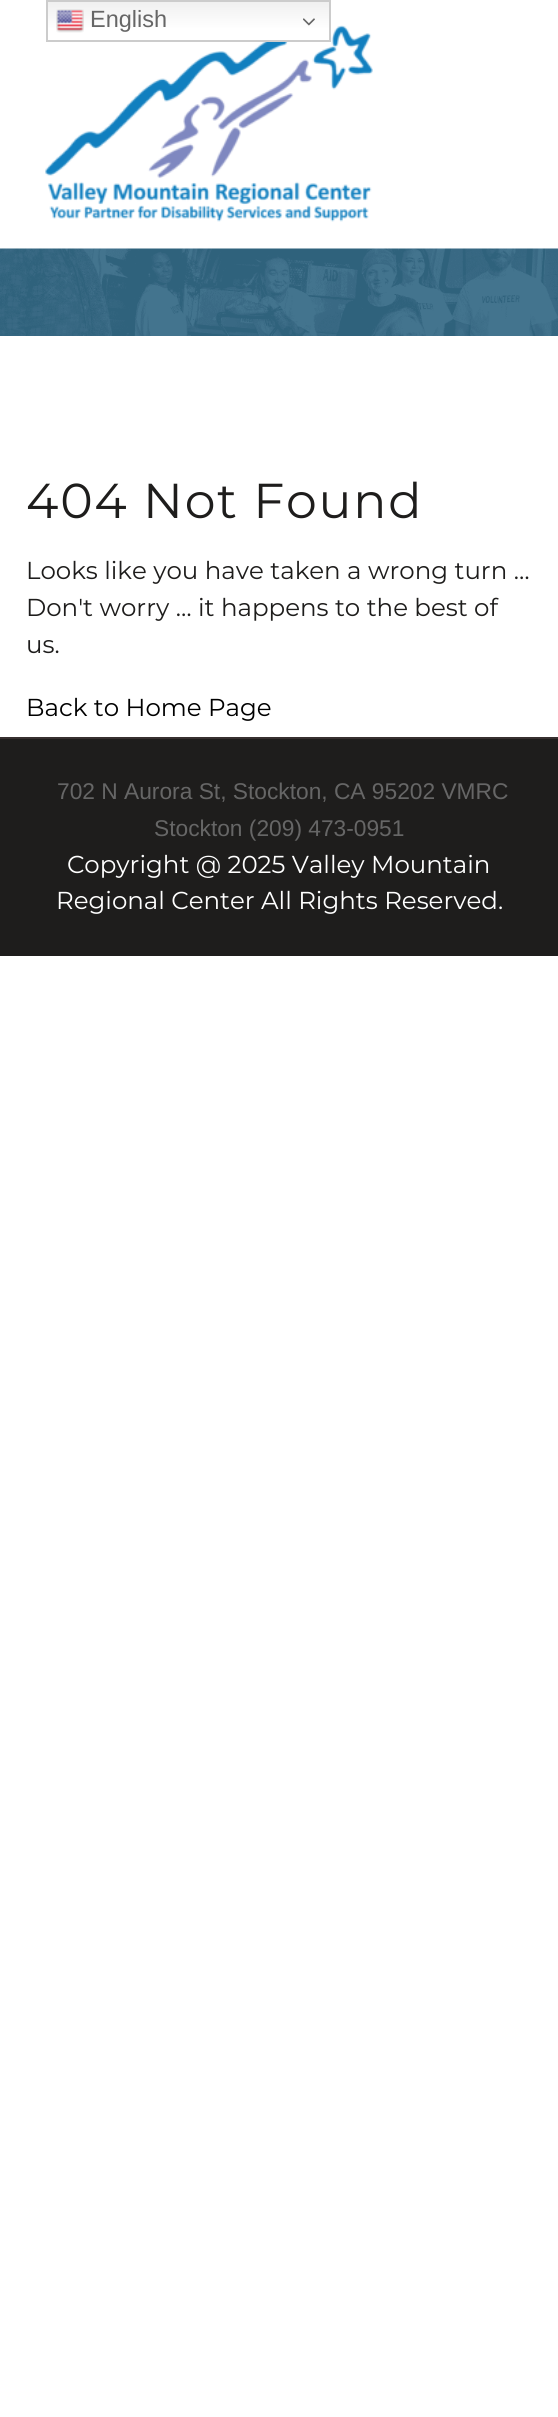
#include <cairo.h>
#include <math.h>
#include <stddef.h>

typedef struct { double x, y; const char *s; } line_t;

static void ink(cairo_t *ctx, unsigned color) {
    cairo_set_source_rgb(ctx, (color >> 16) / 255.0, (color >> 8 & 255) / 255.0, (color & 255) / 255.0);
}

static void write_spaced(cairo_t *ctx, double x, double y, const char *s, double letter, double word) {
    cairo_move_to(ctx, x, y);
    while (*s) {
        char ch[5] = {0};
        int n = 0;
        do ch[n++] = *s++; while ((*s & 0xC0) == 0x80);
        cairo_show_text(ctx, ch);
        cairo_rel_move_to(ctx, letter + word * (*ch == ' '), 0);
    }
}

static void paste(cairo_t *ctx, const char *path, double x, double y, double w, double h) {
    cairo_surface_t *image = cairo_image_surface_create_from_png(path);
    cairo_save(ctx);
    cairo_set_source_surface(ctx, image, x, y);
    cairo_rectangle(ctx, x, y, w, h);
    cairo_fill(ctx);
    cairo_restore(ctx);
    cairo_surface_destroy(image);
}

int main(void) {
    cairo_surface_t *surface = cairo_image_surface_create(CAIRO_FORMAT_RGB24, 558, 2417);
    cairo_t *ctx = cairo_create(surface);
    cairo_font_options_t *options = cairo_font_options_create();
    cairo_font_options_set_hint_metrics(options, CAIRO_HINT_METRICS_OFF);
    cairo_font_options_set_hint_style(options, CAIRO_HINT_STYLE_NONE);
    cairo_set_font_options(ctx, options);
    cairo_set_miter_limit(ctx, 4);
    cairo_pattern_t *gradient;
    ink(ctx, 0xFFFFFF);
    cairo_paint(ctx);
    paste(ctx, "media/3.png", 45, 25, 328, 197);
    gradient = cairo_pattern_create_linear(188, 0, 188, 42);
    cairo_pattern_add_color_stop_rgba(gradient, 0, 0.937, 0.937, 0.937, 1);
    cairo_pattern_add_color_stop_rgba(gradient, 0.7, 1, 1, 1, 1);
    cairo_set_source(ctx, gradient);
    cairo_pattern_destroy(gradient);
    cairo_rectangle(ctx, 48, 2, 281, 38);
    cairo_fill(ctx);
    cairo_rectangle(ctx, 47, 1, 283, 40);
    ink(ctx, 0xCCCCCC);
    cairo_stroke(ctx);
    paste(ctx, "media/1.png", 56, 9, 28, 24);
    cairo_select_font_face(ctx, "Liberation Sans", CAIRO_FONT_SLANT_NORMAL, CAIRO_FONT_WEIGHT_NORMAL);
    cairo_set_font_size(ctx, 23.5);
    ink(ctx, 0x666666);
    cairo_move_to(ctx, 90, 27);
    cairo_show_text(ctx, "English");
    paste(ctx, "media/2.png", 303, 18, 12, 8);
    paste(ctx, "media/4.png", 0, 248, 558, 88);
    cairo_select_font_face(ctx, "Montserrat", CAIRO_FONT_SLANT_NORMAL, CAIRO_FONT_WEIGHT_NORMAL);
    cairo_set_font_size(ctx, 49);
    ink(ctx, 0x1E1D1C);
    write_spaced(ctx, 26, 518, "404 Not Found", 1.75, 0);
    cairo_set_font_size(ctx, 24.5);
    {
        static const line_t items[] = {
            {26, 579, "Looks like you have taken a wrong turn …"},
            {26, 616, "Don't worry … it happens to the best of"},
            {26, 653, "us."},
        };
        for (size_t i = 0; i < sizeof items / sizeof *items; i++) {
            cairo_move_to(ctx, items[i].x, items[i].y);
            cairo_show_text(ctx, items[i].s);
        }
    }
    ink(ctx, 0x000000);
    cairo_move_to(ctx, 26, 716);
    cairo_show_text(ctx, "Back to Home Page");
    ink(ctx, 0x1E1D1C);
    cairo_rectangle(ctx, 0, 739, 558, 217);
    cairo_fill(ctx);
    ink(ctx, 0x373030);
    cairo_rectangle(ctx, 0, 737, 558, 2);
    cairo_fill(ctx);
    cairo_select_font_face(ctx, "Liberation Sans", CAIRO_FONT_SLANT_NORMAL, CAIRO_FONT_WEIGHT_NORMAL);
    cairo_set_font_size(ctx, 22.75);
    ink(ctx, 0x666666);
    cairo_move_to(ctx, 57, 799);
    cairo_show_text(ctx, "702 N Aurora St, Stockton, CA 95202 VMRC");
    cairo_move_to(ctx, 154, 836);
    cairo_show_text(ctx, "Stockton (209) 473-0951");
    cairo_select_font_face(ctx, "Montserrat", CAIRO_FONT_SLANT_NORMAL, CAIRO_FONT_WEIGHT_NORMAL);
    cairo_set_font_size(ctx, 24.5);
    ink(ctx, 0xFFFFFF);
    cairo_move_to(ctx, 67, 873);
    cairo_show_text(ctx, "Copyright @ 2025 Valley Mountain");
    cairo_move_to(ctx, 56, 909);
    cairo_show_text(ctx, "Regional Center All Rights Reserved.");
    cairo_surface_write_to_png(surface, "image.png");
    cairo_font_options_destroy(options);
    cairo_destroy(ctx);
    cairo_surface_destroy(surface);
    return 0;
}
